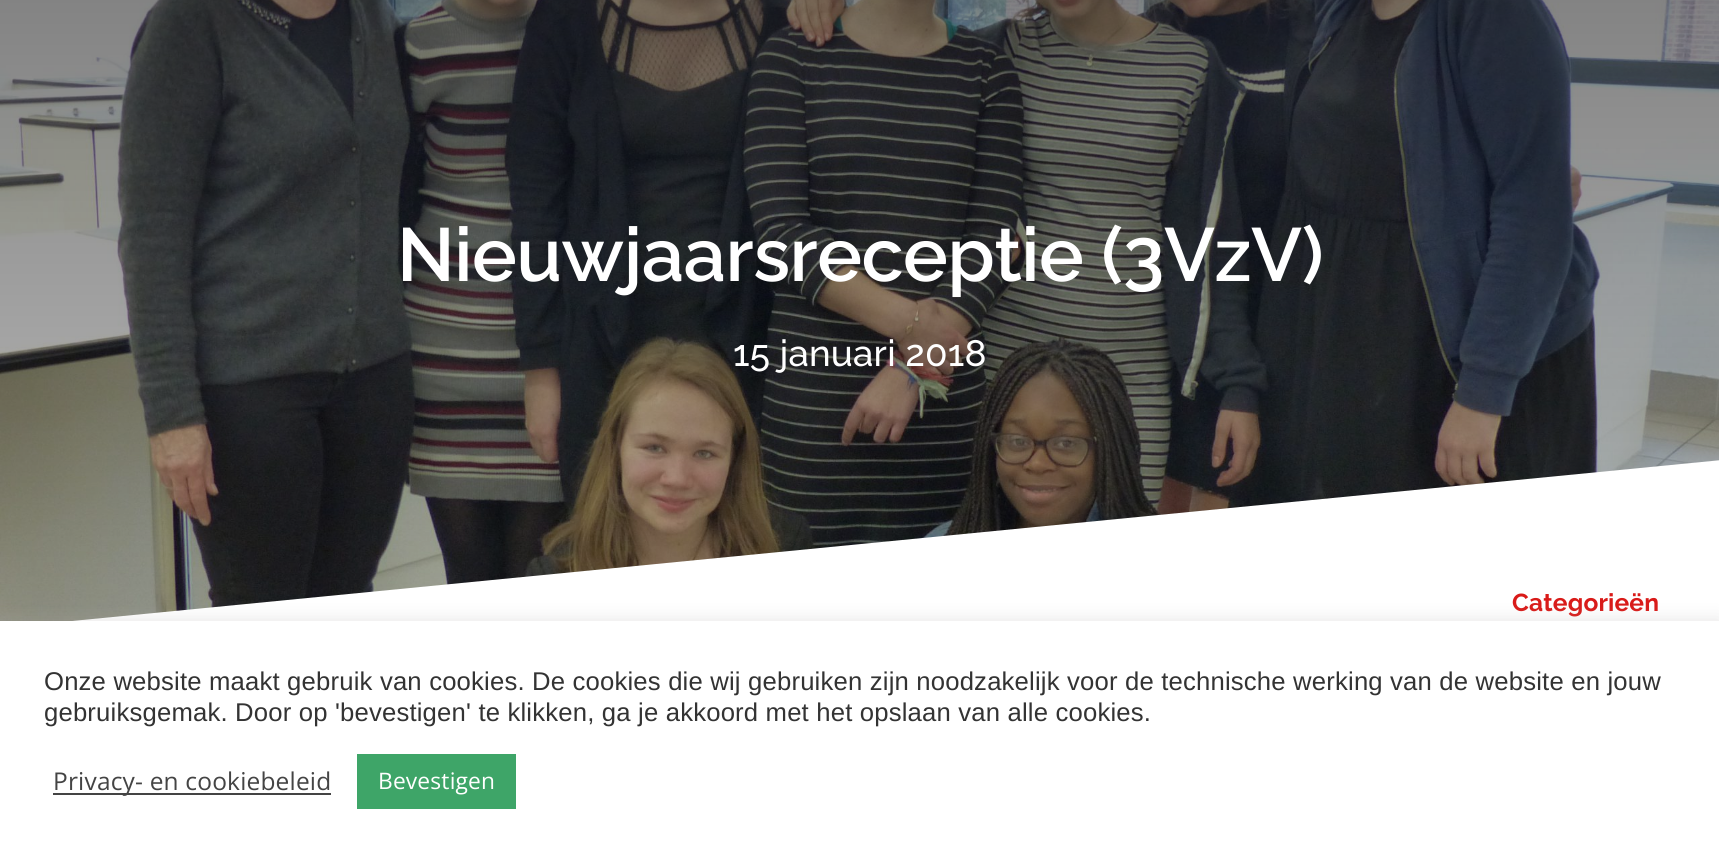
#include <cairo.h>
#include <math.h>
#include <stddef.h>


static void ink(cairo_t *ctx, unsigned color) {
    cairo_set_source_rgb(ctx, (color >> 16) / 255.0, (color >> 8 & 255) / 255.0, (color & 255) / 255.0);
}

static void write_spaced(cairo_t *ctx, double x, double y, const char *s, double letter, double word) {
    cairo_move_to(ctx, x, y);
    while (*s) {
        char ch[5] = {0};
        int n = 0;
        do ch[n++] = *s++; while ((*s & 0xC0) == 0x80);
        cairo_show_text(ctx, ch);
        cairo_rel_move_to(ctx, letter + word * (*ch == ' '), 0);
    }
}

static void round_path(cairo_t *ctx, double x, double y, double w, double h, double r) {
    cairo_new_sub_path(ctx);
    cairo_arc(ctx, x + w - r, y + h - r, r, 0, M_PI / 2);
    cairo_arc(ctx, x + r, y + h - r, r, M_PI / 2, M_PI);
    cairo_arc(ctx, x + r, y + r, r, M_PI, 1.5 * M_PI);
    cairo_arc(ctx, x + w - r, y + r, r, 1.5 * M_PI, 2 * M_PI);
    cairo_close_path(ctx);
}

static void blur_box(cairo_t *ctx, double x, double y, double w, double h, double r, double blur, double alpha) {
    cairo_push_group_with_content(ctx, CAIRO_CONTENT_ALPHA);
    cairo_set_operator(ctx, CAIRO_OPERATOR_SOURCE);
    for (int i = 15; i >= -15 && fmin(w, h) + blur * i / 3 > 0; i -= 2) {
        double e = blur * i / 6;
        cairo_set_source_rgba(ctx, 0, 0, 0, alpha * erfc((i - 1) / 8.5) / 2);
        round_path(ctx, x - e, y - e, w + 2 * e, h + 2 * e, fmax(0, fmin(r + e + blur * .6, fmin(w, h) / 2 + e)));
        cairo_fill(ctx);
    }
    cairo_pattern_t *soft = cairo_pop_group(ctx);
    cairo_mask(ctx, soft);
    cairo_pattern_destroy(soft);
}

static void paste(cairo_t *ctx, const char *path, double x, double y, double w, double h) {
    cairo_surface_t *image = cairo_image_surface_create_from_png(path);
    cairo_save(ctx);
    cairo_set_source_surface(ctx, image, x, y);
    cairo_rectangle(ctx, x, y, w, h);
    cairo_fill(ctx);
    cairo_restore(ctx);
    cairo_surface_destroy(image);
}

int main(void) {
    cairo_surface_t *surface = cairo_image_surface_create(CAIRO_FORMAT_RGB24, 1719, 861);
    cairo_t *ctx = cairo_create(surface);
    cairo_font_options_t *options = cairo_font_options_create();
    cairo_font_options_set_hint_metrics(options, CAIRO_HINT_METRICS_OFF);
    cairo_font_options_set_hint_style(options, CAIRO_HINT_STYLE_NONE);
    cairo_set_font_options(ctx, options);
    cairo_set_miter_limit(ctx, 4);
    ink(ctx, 0xFFFFFF);
    cairo_paint(ctx);
    paste(ctx, "media/1.png", 0, 0, 1719, 621);
    cairo_select_font_face(ctx, "Raleway SemiBold", CAIRO_FONT_SLANT_NORMAL, CAIRO_FONT_WEIGHT_NORMAL);
    cairo_set_font_size(ctx, 75.25);
    ink(ctx, 0xFFFFFF);
    write_spaced(ctx, 397, 281, "Nieuwjaarsreceptie (3VzV)", -0.5, 0);
    cairo_select_font_face(ctx, "Raleway Medium", CAIRO_FONT_SLANT_NORMAL, CAIRO_FONT_WEIGHT_NORMAL);
    cairo_set_font_size(ctx, 36.75);
    write_spaced(ctx, 733, 366, "15 januari 2018", 0.18, 0);
    cairo_new_path(ctx);
    cairo_move_to(ctx, 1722, 460);
    cairo_line_to(ctx, 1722, 628);
    cairo_line_to(ctx, 0, 628);
    cairo_close_path(ctx);
    cairo_fill(ctx);
    cairo_select_font_face(ctx, "Raleway", CAIRO_FONT_SLANT_NORMAL, CAIRO_FONT_WEIGHT_BOLD);
    cairo_set_font_size(ctx, 24.5);
    ink(ctx, 0xD91A18);
    write_spaced(ctx, 1512, 611, "Categorieën", 0.18, 0);
    ink(ctx, 0xACABAB);
    blur_box(ctx, 0, 620, 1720, 239, 0, 9, 0.3);
    ink(ctx, 0xFFFFFF);
    cairo_rectangle(ctx, 0, 621, 1719, 240);
    cairo_fill(ctx);
    cairo_select_font_face(ctx, "Liberation Sans", CAIRO_FONT_SLANT_NORMAL, CAIRO_FONT_WEIGHT_NORMAL);
    cairo_set_font_size(ctx, 25.67);
    ink(ctx, 0x333333);
    write_spaced(ctx, 44, 690, "Onze website maakt gebruik van cookies. De cookies die wij gebruiken zijn noodzakelijk voor de technische werking van de website en jouw", 0.18, 0);
    write_spaced(ctx, 44, 721, "gebruiksgemak. Door op 'bevestigen' te klikken, ga je akkoord met het opslaan van alle cookies.", 0.18, 0);
    ink(ctx, 0x444444);
    cairo_rectangle(ctx, 53, 793, 278, 2);
    cairo_fill(ctx);
    cairo_select_font_face(ctx, "Open Sans", CAIRO_FONT_SLANT_NORMAL, CAIRO_FONT_WEIGHT_NORMAL);
    cairo_set_font_size(ctx, 24.5);
    write_spaced(ctx, 53, 790, "Privacy- en cookiebeleid", 0.18, 0);
    ink(ctx, 0x3EA568);
    cairo_rectangle(ctx, 357, 754, 159, 55);
    cairo_fill(ctx);
    cairo_set_font_size(ctx, 22.75);
    ink(ctx, 0xFFFFFF);
    write_spaced(ctx, 378, 789, "Bevestigen", 0.18, 0);
    cairo_surface_write_to_png(surface, "image.png");
    cairo_font_options_destroy(options);
    cairo_destroy(ctx);
    cairo_surface_destroy(surface);
    return 0;
}
